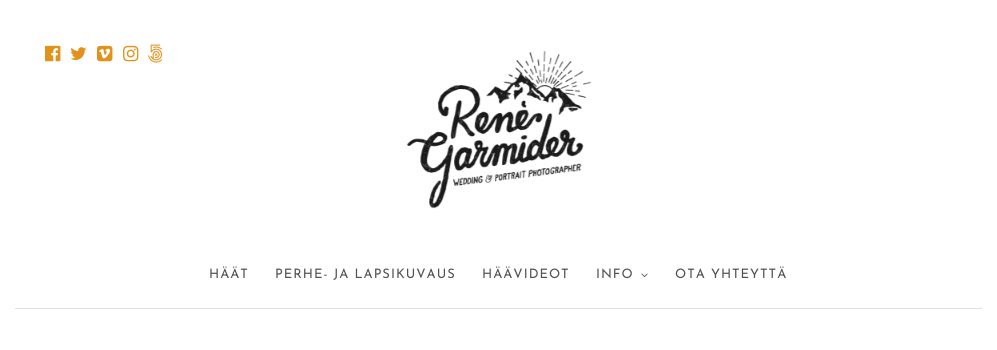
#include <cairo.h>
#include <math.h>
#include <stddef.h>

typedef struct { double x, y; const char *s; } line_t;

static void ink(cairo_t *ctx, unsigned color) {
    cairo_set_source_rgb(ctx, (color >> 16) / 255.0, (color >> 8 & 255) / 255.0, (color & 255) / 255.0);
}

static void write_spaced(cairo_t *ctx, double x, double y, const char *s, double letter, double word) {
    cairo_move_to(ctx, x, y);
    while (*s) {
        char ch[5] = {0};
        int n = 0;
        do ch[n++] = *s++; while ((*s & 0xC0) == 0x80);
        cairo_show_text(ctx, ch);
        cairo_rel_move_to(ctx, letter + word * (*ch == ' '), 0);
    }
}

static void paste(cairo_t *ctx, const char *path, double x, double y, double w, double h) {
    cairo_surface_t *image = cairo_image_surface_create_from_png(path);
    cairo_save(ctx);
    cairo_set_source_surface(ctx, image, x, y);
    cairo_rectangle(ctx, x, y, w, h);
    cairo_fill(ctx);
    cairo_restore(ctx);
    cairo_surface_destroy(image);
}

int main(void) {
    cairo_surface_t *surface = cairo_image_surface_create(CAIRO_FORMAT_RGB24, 997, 350);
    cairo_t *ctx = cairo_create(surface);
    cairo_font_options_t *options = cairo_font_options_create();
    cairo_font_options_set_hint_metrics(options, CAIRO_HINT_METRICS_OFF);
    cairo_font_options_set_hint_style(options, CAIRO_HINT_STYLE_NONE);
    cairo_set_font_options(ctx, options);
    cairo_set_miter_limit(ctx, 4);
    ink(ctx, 0xFFFFFF);
    cairo_paint(ctx);
    ink(ctx, 0xE0E0E0);
    cairo_rectangle(ctx, 15, 308, 967, 1);
    cairo_fill(ctx);
    paste(ctx, "media/1.png", 45, 45, 16, 17);
    paste(ctx, "media/2.png", 70, 47, 17, 13);
    paste(ctx, "media/3.png", 97, 45, 16, 17);
    paste(ctx, "media/4.png", 123, 45, 16, 17);
    paste(ctx, "media/5.png", 148, 44, 15, 19);
    paste(ctx, "media/6.png", 406, 51, 186, 158);
    cairo_select_font_face(ctx, "Josefin Sans Thin", CAIRO_FONT_SLANT_NORMAL, CAIRO_FONT_WEIGHT_NORMAL);
    cairo_set_font_size(ctx, 13);
    ink(ctx, 0x515151);
    {
        static const line_t items[] = {
            {209, 278, "HÄÄT"},
            {275, 278, "PERHE- JA LAPSIKUVAUS"},
            {482, 278, "HÄÄVIDEOT"},
            {596, 278, "INFO"},
        };
        for (size_t i = 0; i < sizeof items / sizeof *items; i++) {
            write_spaced(ctx, items[i].x, items[i].y, items[i].s, 1, 0);
        }
    }
    paste(ctx, "media/7.png", 641, 273, 7, 5);
    write_spaced(ctx, 675, 278, "OTA YHTEYTTÄ", 1, 0);
    cairo_surface_write_to_png(surface, "image.png");
    cairo_font_options_destroy(options);
    cairo_destroy(ctx);
    cairo_surface_destroy(surface);
    return 0;
}
